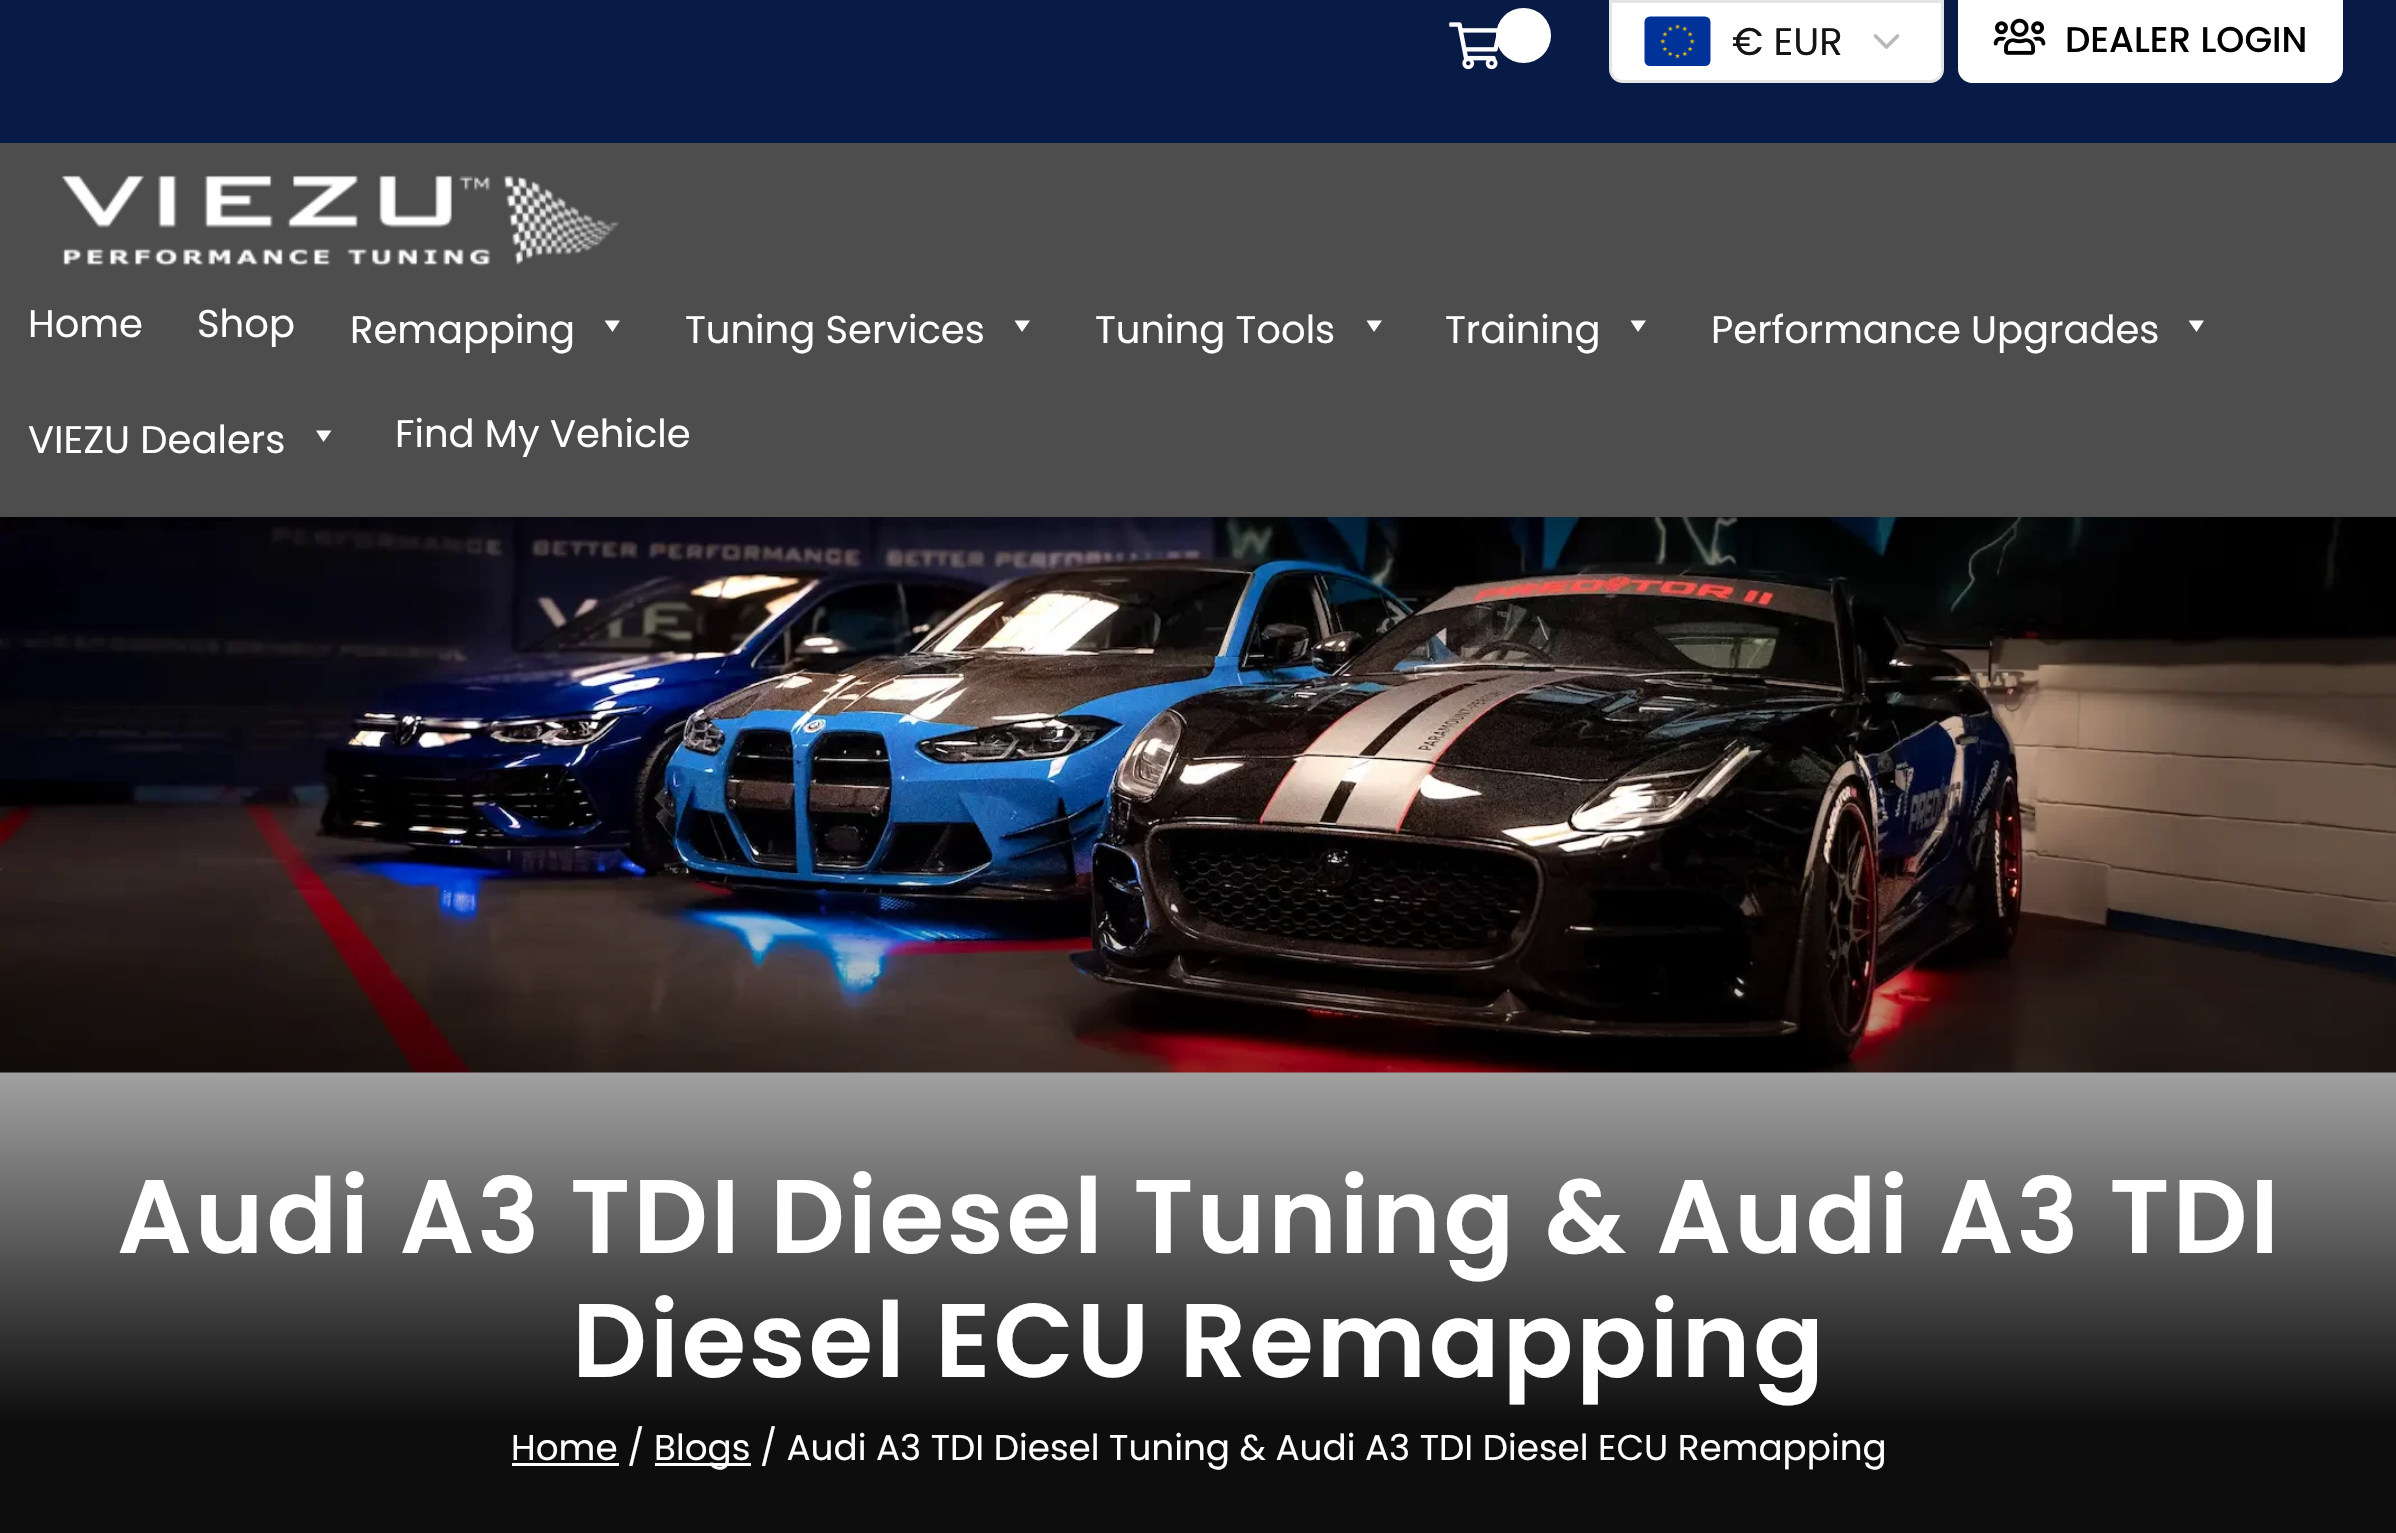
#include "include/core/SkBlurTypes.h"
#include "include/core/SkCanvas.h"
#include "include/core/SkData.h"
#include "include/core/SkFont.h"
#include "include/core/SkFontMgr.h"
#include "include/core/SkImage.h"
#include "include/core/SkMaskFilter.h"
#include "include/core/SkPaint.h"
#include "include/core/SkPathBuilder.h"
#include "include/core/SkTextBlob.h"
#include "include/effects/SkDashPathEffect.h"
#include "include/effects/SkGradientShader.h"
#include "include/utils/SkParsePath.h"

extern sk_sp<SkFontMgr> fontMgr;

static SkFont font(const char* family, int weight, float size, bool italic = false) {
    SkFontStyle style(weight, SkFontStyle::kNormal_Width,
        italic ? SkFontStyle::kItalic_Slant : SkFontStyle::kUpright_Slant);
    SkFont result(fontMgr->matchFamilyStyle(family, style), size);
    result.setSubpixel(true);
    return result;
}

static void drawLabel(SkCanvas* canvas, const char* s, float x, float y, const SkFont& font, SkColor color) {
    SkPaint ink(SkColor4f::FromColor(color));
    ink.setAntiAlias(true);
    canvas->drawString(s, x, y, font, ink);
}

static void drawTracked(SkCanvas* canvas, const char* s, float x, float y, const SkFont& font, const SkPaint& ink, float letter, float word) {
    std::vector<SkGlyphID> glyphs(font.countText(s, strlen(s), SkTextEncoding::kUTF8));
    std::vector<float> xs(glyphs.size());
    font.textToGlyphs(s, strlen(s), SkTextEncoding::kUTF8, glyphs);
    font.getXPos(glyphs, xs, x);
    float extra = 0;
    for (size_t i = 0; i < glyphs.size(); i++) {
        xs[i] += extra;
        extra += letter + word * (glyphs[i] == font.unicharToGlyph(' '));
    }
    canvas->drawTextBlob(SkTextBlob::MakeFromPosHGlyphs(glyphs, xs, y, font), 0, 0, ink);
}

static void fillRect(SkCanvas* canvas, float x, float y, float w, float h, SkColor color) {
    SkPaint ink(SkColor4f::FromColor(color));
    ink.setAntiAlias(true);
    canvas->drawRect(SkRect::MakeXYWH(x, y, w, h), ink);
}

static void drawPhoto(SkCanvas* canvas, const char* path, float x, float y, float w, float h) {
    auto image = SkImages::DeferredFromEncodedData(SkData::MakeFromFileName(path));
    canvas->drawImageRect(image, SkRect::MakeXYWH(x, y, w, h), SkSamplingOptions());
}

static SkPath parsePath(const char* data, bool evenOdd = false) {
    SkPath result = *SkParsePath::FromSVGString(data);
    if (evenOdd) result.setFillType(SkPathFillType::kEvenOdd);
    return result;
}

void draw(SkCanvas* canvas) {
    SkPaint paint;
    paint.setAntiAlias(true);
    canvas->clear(0xFFFFFFFF);
    fillRect(canvas, 0, 143, 2396, 374, 0xFF4D4D4D);
    fillRect(canvas, 0, 0, 2396, 143, 0xFF081B46);
    drawPhoto(canvas, "assets/img1.png", 1449, 22, 50, 48);
    paint.setColor(0xFFFFFFFF);
    canvas->drawCircle(1523.5f, 35.5f, 27.5f, paint);
    canvas->drawPath(parsePath("M1610.5 1.5H1942.5V69C1942.5 76 1937 81.5 1930 81.5H1623C1616 81.5 1610.5 76 1610.5 69Z"), paint);
    paint.setStroke(true);
    paint.setStrokeWidth(3);
    paint.setColor(0xFFE5E5E5);
    canvas->drawPath(parsePath("M1610.5 1.5H1942.5V69C1942.5 76 1937 81.5 1930 81.5H1623C1616 81.5 1610.5 76 1610.5 69Z"), paint);
    drawPhoto(canvas, "assets/img2.png", 1644, 16, 67, 50);
    SkFont font1 = font("Poppins", 400, 38.5f);
    drawLabel(canvas, "€ EUR", 1732, 55, font1, 0xFF151515);
    paint.setStrokeWidth(3.7f);
    paint.setStrokeCap(SkPaint::kRound_Cap);
    paint.setStrokeJoin(SkPaint::kRound_Join);
    paint.setColor(0xFFB9B9B9);
    canvas->drawPath(parsePath("M1875.5 36L1886.5 47L1897.5 36"), paint);
    paint.setStroke(false);
    paint.setColor(0xFFFFFFFF);
    canvas->drawPath(parsePath("M1958 0H2343V69C2343 76.5 2336.5 83 2329 83H1972C1964.5 83 1958 76.5 1958 69Z"), paint);
    drawPhoto(canvas, "assets/img3.png", 1993, 18, 53, 37);
    SkFont font2 = font("Poppins", 500, 35.75f);
    drawLabel(canvas, "DEALER LOGIN", 2065, 52, font2, 0xFF000000);
    drawPhoto(canvas, "assets/img4.png", 62, 175, 557, 91);
    drawLabel(canvas, "Home", 28, 337, font1, 0xFFFFFFFF);
    drawLabel(canvas, "Shop", 197, 337, font1, 0xFFFFFFFF);
    drawLabel(canvas, "Remapping", 350, 343, font1, 0xFFFFFFFF);
    canvas->drawPath(parsePath("M620 320.5L612.5 332L604.5 320.5Z"), paint);
    drawLabel(canvas, "Tuning Services", 685, 343, font1, 0xFFFFFFFF);
    canvas->drawPath(parsePath("M1030 320.5L1022 332L1014.5 320.5Z"), paint);
    drawLabel(canvas, "Tuning Tools", 1095, 343, font1, 0xFFFFFFFF);
    canvas->drawPath(parsePath("M1382 320.5L1374 332L1366.5 320.5Z"), paint);
    drawLabel(canvas, "Training", 1445, 343, font1, 0xFFFFFFFF);
    canvas->drawPath(parsePath("M1646 320.5L1638 332L1630.5 320.5Z"), paint);
    drawLabel(canvas, "Performance Upgrades", 1711, 343, font1, 0xFFFFFFFF);
    canvas->drawPath(parsePath("M2204 320.5L2196.5 332L2188.5 320.5Z"), paint);
    drawLabel(canvas, "VIEZU Dealers", 28, 453, font1, 0xFFFFFFFF);
    canvas->drawPath(parsePath("M331.5 430.5L323.5 442L316 430.5Z"), paint);
    drawLabel(canvas, "Find My Vehicle", 395, 447, font1, 0xFFFFFFFF);
    drawPhoto(canvas, "assets/img5.png", 0, 517, 2396, 556);
    {
        const SkColor colors[] = {0xF2000000, 0x00000000};
        const float stops[] = {0.2f, 1};
        const SkPoint ends[] = {{1199, 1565}, {1199, 850}};
        paint.setShader(SkGradientShader::MakeLinear(ends, colors, stops, 2, SkTileMode::kClamp));
        paint.setAlpha(255);
    }
    canvas->drawRect(SkRect::MakeXYWH(0, 863, 2396, 670), paint);
    SkFont font3 = font("Poppins", 600, 104.5f);
    paint.setShader(nullptr);
    paint.setColor(0xFFFFFFFF);
    drawTracked(canvas, "Audi A3 TDI Diesel Tuning & Audi A3 TDI", 117, 1253, font3, paint, 2.75f, 0);
    drawTracked(canvas, "Diesel ECU Remapping", 572, 1377, font3, paint, 2.75f, 0);
    fillRect(canvas, 512, 1463, 107, 3, 0xFFFFFFFF);
    SkFont font4 = font("Poppins", 400, 35.75f);
    drawLabel(canvas, "Home /", 511, 1460, font4, 0xFFFFFFFF);
    fillRect(canvas, 655, 1463, 96, 3, 0xFFFFFFFF);
    drawLabel(canvas, "Blogs / Audi A3 TDI Diesel Tuning & Audi A3 TDI Diesel ECU Remapping", 654, 1460, font4, 0xFFFFFFFF);
}
